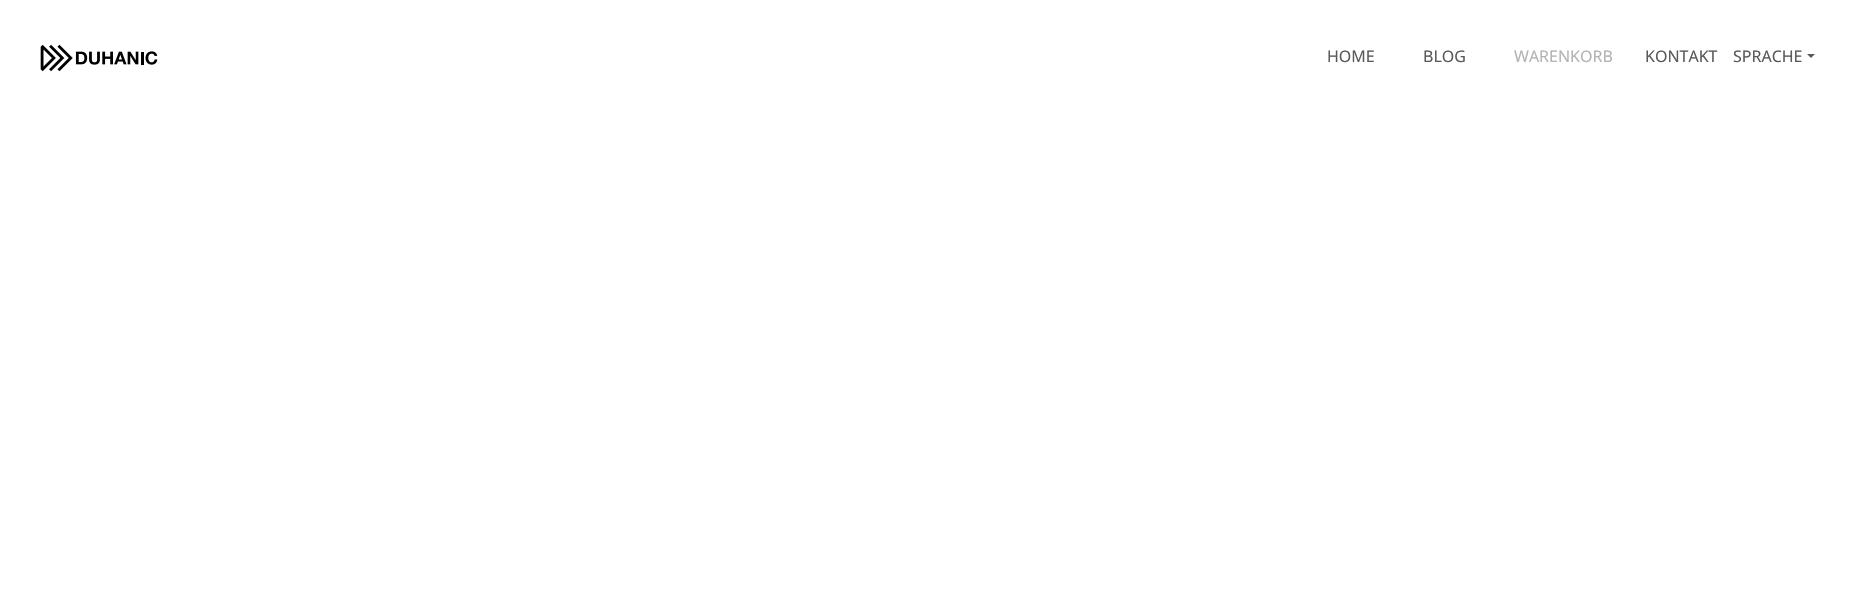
#include "include/core/SkBlurTypes.h"
#include "include/core/SkCanvas.h"
#include "include/core/SkData.h"
#include "include/core/SkFont.h"
#include "include/core/SkFontMgr.h"
#include "include/core/SkImage.h"
#include "include/core/SkMaskFilter.h"
#include "include/core/SkPaint.h"
#include "include/core/SkPathBuilder.h"
#include "include/core/SkTextBlob.h"
#include "include/effects/SkDashPathEffect.h"
#include "include/effects/SkGradientShader.h"
#include "include/utils/SkParsePath.h"

extern sk_sp<SkFontMgr> fontMgr;

static SkFont font(const char* family, int weight, float size, bool italic = false) {
    SkFontStyle style(weight, SkFontStyle::kNormal_Width,
        italic ? SkFontStyle::kItalic_Slant : SkFontStyle::kUpright_Slant);
    SkFont result(fontMgr->matchFamilyStyle(family, style), size);
    result.setSubpixel(true);
    return result;
}

static void drawLabel(SkCanvas* canvas, const char* s, float x, float y, const SkFont& font, SkColor color) {
    SkPaint ink(SkColor4f::FromColor(color));
    ink.setAntiAlias(true);
    canvas->drawString(s, x, y, font, ink);
}

static void drawPhoto(SkCanvas* canvas, const char* path, float x, float y, float w, float h) {
    auto image = SkImages::DeferredFromEncodedData(SkData::MakeFromFileName(path));
    canvas->drawImageRect(image, SkRect::MakeXYWH(x, y, w, h), SkSamplingOptions());
}

static SkPath parsePath(const char* data, bool evenOdd = false) {
    SkPath result = *SkParsePath::FromSVGString(data);
    if (evenOdd) result.setFillType(SkPathFillType::kEvenOdd);
    return result;
}

void draw(SkCanvas* canvas) {
    SkPaint paint;
    paint.setAntiAlias(true);
    canvas->clear(0xFFFFFFFF);
    drawPhoto(canvas, "assets/img1.png", 40, 44, 118, 28);
    SkFont font1 = font("Noto Sans", 400, 16);
    drawLabel(canvas, "HOME", 1327, 62, font1, 0xFF595959);
    drawLabel(canvas, "BLOG", 1423, 62, font1, 0xFF595959);
    drawLabel(canvas, "WARENKORB", 1514, 62, font1, 0xFFB3B3B3);
    drawLabel(canvas, "KONTAKT", 1645, 62, font1, 0xFF595959);
    drawLabel(canvas, "SPRACHE", 1733, 62, font1, 0xFF595959);
    paint.setColor(0xFF595959);
    canvas->drawPath(parsePath("M1807 54H1815L1811 58Z"), paint);
}
